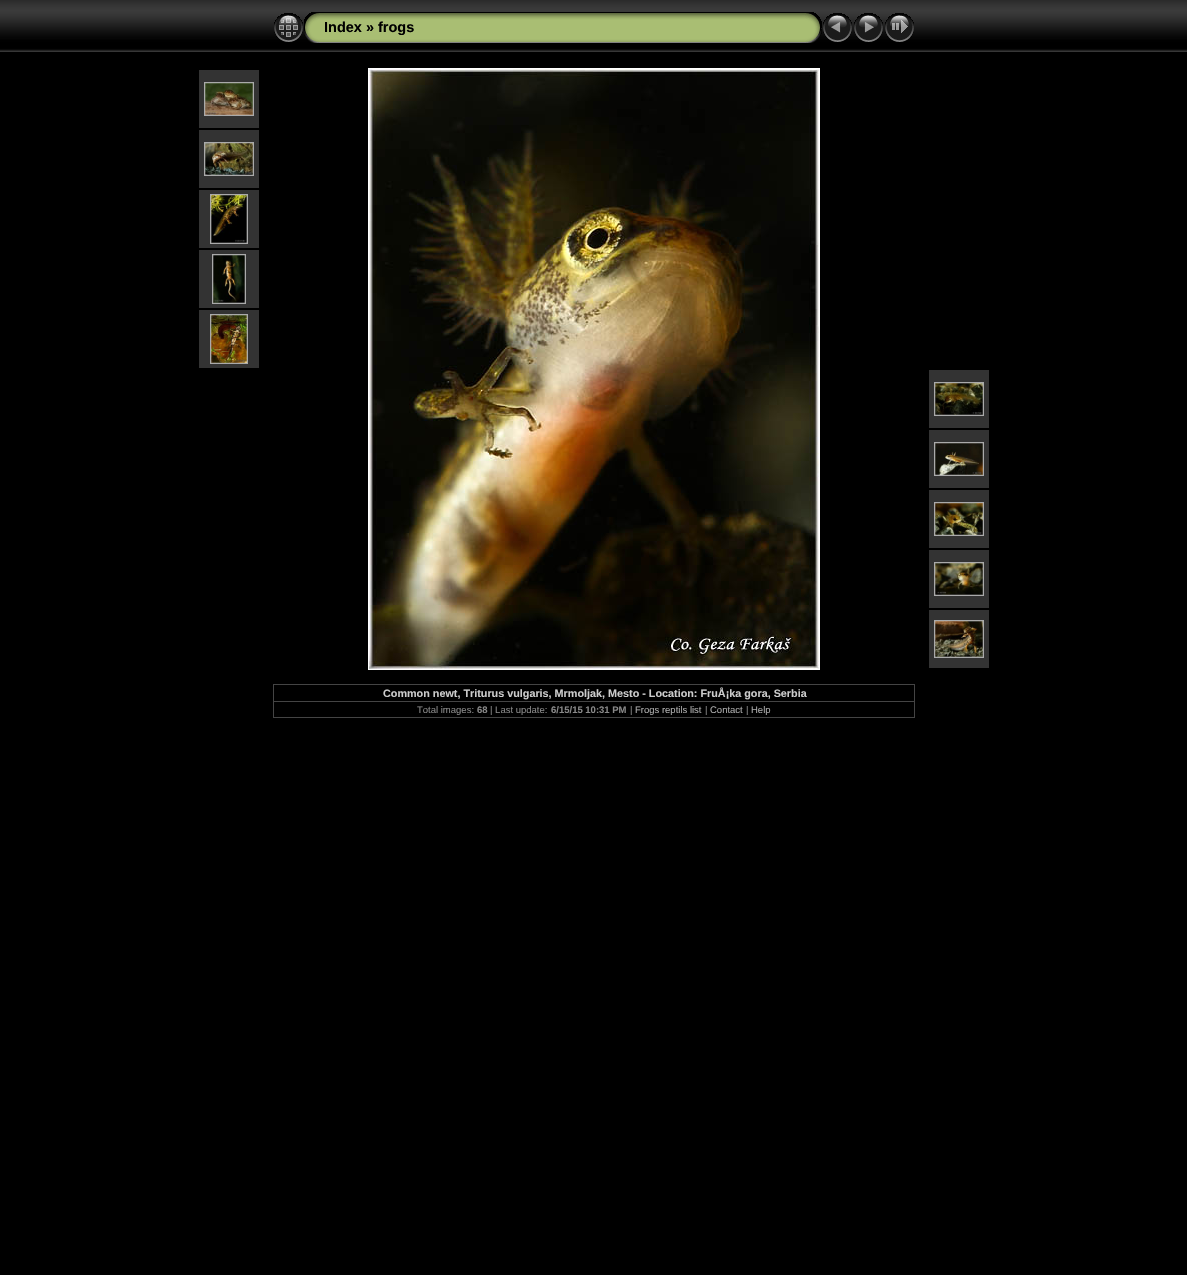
#include "include/core/SkBlurTypes.h"
#include "include/core/SkCanvas.h"
#include "include/core/SkData.h"
#include "include/core/SkFont.h"
#include "include/core/SkFontMgr.h"
#include "include/core/SkImage.h"
#include "include/core/SkMaskFilter.h"
#include "include/core/SkPaint.h"
#include "include/core/SkPathBuilder.h"
#include "include/core/SkTextBlob.h"
#include "include/effects/SkDashPathEffect.h"
#include "include/effects/SkGradientShader.h"
#include "include/utils/SkParsePath.h"

extern sk_sp<SkFontMgr> fontMgr;

static SkFont font(const char* family, int weight, float size, bool italic = false) {
    SkFontStyle style(weight, SkFontStyle::kNormal_Width,
        italic ? SkFontStyle::kItalic_Slant : SkFontStyle::kUpright_Slant);
    SkFont result(fontMgr->matchFamilyStyle(family, style), size);
    result.setSubpixel(true);
    return result;
}

static void drawLabel(SkCanvas* canvas, const char* s, float x, float y, const SkFont& font, SkColor color) {
    SkPaint ink(SkColor4f::FromColor(color));
    ink.setAntiAlias(true);
    canvas->drawString(s, x, y, font, ink);
}

static void fillRect(SkCanvas* canvas, float x, float y, float w, float h, SkColor color) {
    SkPaint ink(SkColor4f::FromColor(color));
    ink.setAntiAlias(true);
    canvas->drawRect(SkRect::MakeXYWH(x, y, w, h), ink);
}

static void drawPhoto(SkCanvas* canvas, const char* path, float x, float y, float w, float h) {
    auto image = SkImages::DeferredFromEncodedData(SkData::MakeFromFileName(path));
    canvas->drawImageRect(image, SkRect::MakeXYWH(x, y, w, h), SkSamplingOptions());
}

void draw(SkCanvas* canvas) {
    SkPaint paint;
    paint.setAntiAlias(true);
    canvas->clear(0xFF000000);
    drawPhoto(canvas, "assets/img1.png", 0, 0, 1187, 52);
    drawPhoto(canvas, "assets/img2.png", 274, 13, 29, 29);
    drawPhoto(canvas, "assets/img3.png", 304, 12, 20, 31);
    drawPhoto(canvas, "assets/img4.png", 324, 12, 478, 31);
    SkFont font1 = font("Liberation Sans", 700, 14.5f);
    drawLabel(canvas, "Index » frogs", 324, 32, font1, 0xFF000000);
    drawPhoto(canvas, "assets/img5.png", 802, 12, 20, 31);
    drawPhoto(canvas, "assets/img6.png", 823, 13, 29, 29);
    drawPhoto(canvas, "assets/img7.png", 854, 13, 29, 29);
    drawPhoto(canvas, "assets/img8.png", 885, 13, 29, 29);
    fillRect(canvas, 199, 70, 60, 58, 0xFF333333);
    paint.setStroke(true);
    paint.setStrokeWidth(1);
    paint.setColor(0xFFAAAAAA);
    canvas->drawRect(SkRect::MakeXYWH(204.5f, 82.5f, 49, 33), paint);
    drawPhoto(canvas, "assets/img9.png", 205, 83, 48, 32);
    fillRect(canvas, 199, 130, 60, 58, 0xFF333333);
    canvas->drawRect(SkRect::MakeXYWH(204.5f, 142.5f, 49, 33), paint);
    drawPhoto(canvas, "assets/img10.png", 205, 143, 48, 32);
    fillRect(canvas, 199, 190, 60, 58, 0xFF333333);
    canvas->drawRect(SkRect::MakeXYWH(210.5f, 194.5f, 37, 49), paint);
    drawPhoto(canvas, "assets/img11.png", 211, 195, 36, 48);
    fillRect(canvas, 199, 250, 60, 58, 0xFF333333);
    canvas->drawRect(SkRect::MakeXYWH(212.5f, 254.5f, 33, 49), paint);
    drawPhoto(canvas, "assets/img12.png", 213, 255, 32, 48);
    fillRect(canvas, 199, 310, 60, 58, 0xFF333333);
    canvas->drawRect(SkRect::MakeXYWH(210.5f, 314.5f, 37, 49), paint);
    drawPhoto(canvas, "assets/img13.png", 211, 315, 36, 48);
    paint.setColor(0xFFFFFFFF);
    canvas->drawRect(SkRect::MakeXYWH(368.5f, 68.5f, 451, 601), paint);
    drawPhoto(canvas, "assets/img14.png", 369, 69, 450, 600);
    fillRect(canvas, 929, 370, 60, 58, 0xFF333333);
    paint.setColor(0xFFAAAAAA);
    canvas->drawRect(SkRect::MakeXYWH(934.5f, 382.5f, 49, 33), paint);
    drawPhoto(canvas, "assets/img15.png", 935, 383, 48, 32);
    fillRect(canvas, 929, 430, 60, 58, 0xFF333333);
    canvas->drawRect(SkRect::MakeXYWH(934.5f, 442.5f, 49, 33), paint);
    drawPhoto(canvas, "assets/img16.png", 935, 443, 48, 32);
    fillRect(canvas, 929, 490, 60, 58, 0xFF333333);
    canvas->drawRect(SkRect::MakeXYWH(934.5f, 502.5f, 49, 33), paint);
    drawPhoto(canvas, "assets/img17.png", 935, 503, 48, 32);
    fillRect(canvas, 929, 550, 60, 58, 0xFF333333);
    canvas->drawRect(SkRect::MakeXYWH(934.5f, 562.5f, 49, 33), paint);
    drawPhoto(canvas, "assets/img18.png", 935, 563, 48, 32);
    fillRect(canvas, 929, 610, 60, 58, 0xFF333333);
    canvas->drawRect(SkRect::MakeXYWH(934.5f, 620.5f, 49, 37), paint);
    drawPhoto(canvas, "assets/img19.png", 935, 621, 48, 36);
    fillRect(canvas, 273, 684, 642, 1, 0xFF444444);
    fillRect(canvas, 914, 684, 1, 34, 0xFF444444);
    fillRect(canvas, 273, 717, 642, 1, 0xFF444444);
    fillRect(canvas, 273, 684, 1, 34, 0xFF444444);
    SkFont font2 = font("Liberation Sans", 700, 10.8f);
    drawLabel(canvas, "Common newt, Triturus vulgaris, Mrmoljak, Mesto - Location: FruÅ¡ka gora, Serbia", 383, 697, font2, 0xFFCCCCCC);
    fillRect(canvas, 273, 701, 642, 1, 0xFF444444);
    SkFont font3 = font("Liberation Sans", 400, 9.5f);
    drawLabel(canvas, "Total images:", 417, 713, font3, 0xFF888888);
    SkFont font4 = font("Liberation Sans", 700, 9.5f);
    drawLabel(canvas, "68", 477, 713, font4, 0xFF888888);
    drawLabel(canvas, "| Last update:", 490, 713, font3, 0xFF888888);
    drawLabel(canvas, "6/15/15 10:31 PM", 551, 713, font4, 0xFF888888);
    drawLabel(canvas, "|", 630, 713, font3, 0xFF888888);
    drawLabel(canvas, "Frogs reptils list", 635, 713, font3, 0xFFAAAAAA);
    drawLabel(canvas, "|", 705, 713, font3, 0xFF888888);
    drawLabel(canvas, "Contact", 710, 713, font3, 0xFFAAAAAA);
    drawLabel(canvas, "|", 746, 713, font3, 0xFF888888);
    drawLabel(canvas, "Help", 751, 713, font3, 0xFFAAAAAA);
}
